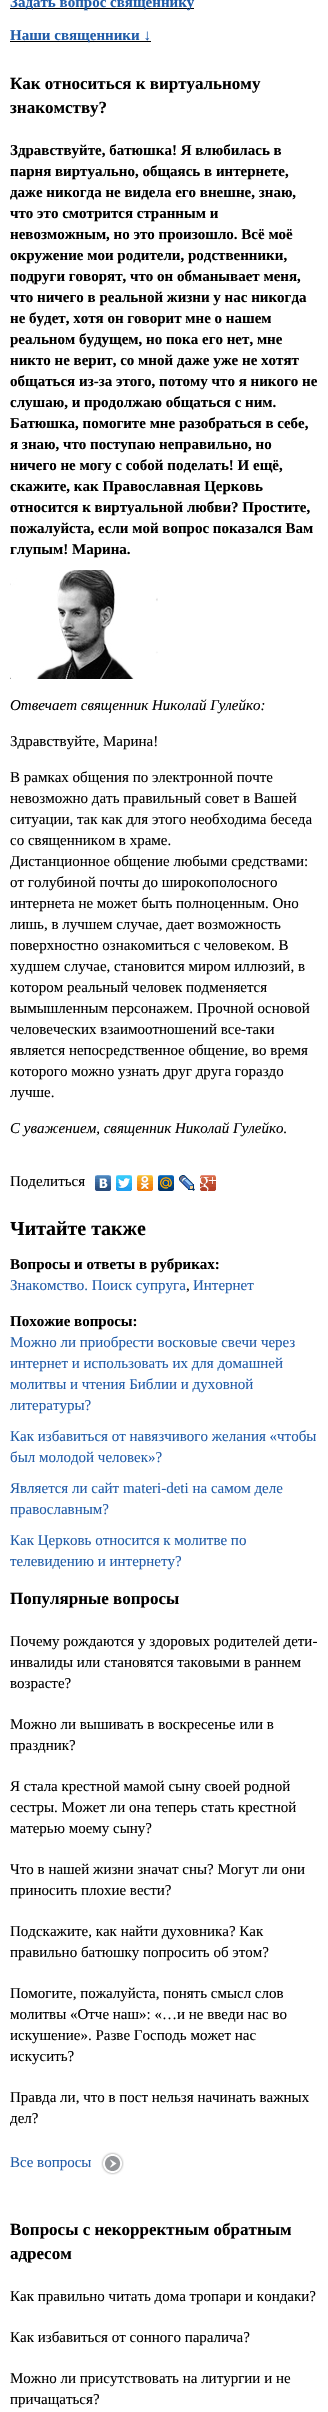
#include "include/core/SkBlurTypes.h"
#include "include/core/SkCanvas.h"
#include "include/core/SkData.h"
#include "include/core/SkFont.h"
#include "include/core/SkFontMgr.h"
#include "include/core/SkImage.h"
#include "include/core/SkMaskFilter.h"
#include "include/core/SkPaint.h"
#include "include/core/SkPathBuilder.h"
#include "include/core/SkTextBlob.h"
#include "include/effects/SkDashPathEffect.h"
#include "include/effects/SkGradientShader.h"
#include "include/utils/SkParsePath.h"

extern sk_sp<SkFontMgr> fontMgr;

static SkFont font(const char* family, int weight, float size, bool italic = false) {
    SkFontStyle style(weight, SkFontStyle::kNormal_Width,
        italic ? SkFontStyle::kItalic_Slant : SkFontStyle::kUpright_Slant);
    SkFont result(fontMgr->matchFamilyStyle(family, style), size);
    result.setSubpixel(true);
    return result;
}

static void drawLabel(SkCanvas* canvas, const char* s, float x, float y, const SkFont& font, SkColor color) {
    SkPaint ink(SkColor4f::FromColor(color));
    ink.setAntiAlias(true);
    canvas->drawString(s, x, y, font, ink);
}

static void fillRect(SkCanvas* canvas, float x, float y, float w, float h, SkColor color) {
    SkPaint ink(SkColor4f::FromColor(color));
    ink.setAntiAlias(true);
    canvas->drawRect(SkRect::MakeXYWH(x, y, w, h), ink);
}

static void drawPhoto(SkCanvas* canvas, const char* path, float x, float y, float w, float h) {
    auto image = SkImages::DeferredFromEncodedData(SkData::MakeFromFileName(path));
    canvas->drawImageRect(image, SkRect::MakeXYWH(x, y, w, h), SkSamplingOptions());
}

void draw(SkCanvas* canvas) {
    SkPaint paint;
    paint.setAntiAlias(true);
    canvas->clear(0xFFFFFFFF);
    fillRect(canvas, 10, 8, 184, 1, 0xFF000000);
    SkFont font1 = font("Liberation Serif", 700, 15);
    drawLabel(canvas, "Задать вопрос священнику", 10, 7, font1, 0xFF225DA9);
    fillRect(canvas, 10, 41, 141, 1, 0xFF000000);
    drawLabel(canvas, "Наши священники ↓", 10, 40, font1, 0xFF225DA9);
    SkFont font2 = font("Liberation Serif", 700, 17);
    drawLabel(canvas, "Как относиться к виртуальному", 10, 89, font2, 0xFF000000);
    drawLabel(canvas, "знакомству?", 10, 113, font2, 0xFF000000);
    drawLabel(canvas, "Здравствуйте, батюшка! Я влюбилась в", 10, 155, font1, 0xFF000000);
    drawLabel(canvas, "парня виртуально, общаясь в интернете,", 10, 176, font1, 0xFF000000);
    drawLabel(canvas, "даже никогда не видела его внешне, знаю,", 10, 197, font1, 0xFF000000);
    drawLabel(canvas, "что это смотрится странным и", 10, 218, font1, 0xFF000000);
    drawLabel(canvas, "невозможным, но это произошло. Всё моё", 10, 239, font1, 0xFF000000);
    drawLabel(canvas, "окружение мои родители, родственники,", 10, 260, font1, 0xFF000000);
    drawLabel(canvas, "подруги говорят, что он обманывает меня,", 10, 281, font1, 0xFF000000);
    drawLabel(canvas, "что ничего в реальной жизни у нас никогда", 10, 302, font1, 0xFF000000);
    drawLabel(canvas, "не будет, хотя он говорит мне о нашем", 10, 323, font1, 0xFF000000);
    drawLabel(canvas, "реальном будущем, но пока его нет, мне", 10, 344, font1, 0xFF000000);
    drawLabel(canvas, "никто не верит, со мной даже уже не хотят", 10, 365, font1, 0xFF000000);
    drawLabel(canvas, "общаться из-за этого, потому что я никого не", 10, 386, font1, 0xFF000000);
    drawLabel(canvas, "слушаю, и продолжаю общаться с ним.", 10, 407, font1, 0xFF000000);
    drawLabel(canvas, "Батюшка, помогите мне разобраться в себе,", 10, 428, font1, 0xFF000000);
    drawLabel(canvas, "я знаю, что поступаю неправильно, но", 10, 449, font1, 0xFF000000);
    drawLabel(canvas, "ничего не могу с собой поделать! И ещё,", 10, 470, font1, 0xFF000000);
    drawLabel(canvas, "скажите, как Православная Церковь", 10, 491, font1, 0xFF000000);
    drawLabel(canvas, "относится к виртуальной любви? Простите,", 10, 512, font1, 0xFF000000);
    drawLabel(canvas, "пожалуйста, если мой вопрос показался Вам", 10, 533, font1, 0xFF000000);
    drawLabel(canvas, "глупым! Марина.", 10, 554, font1, 0xFF000000);
    drawPhoto(canvas, "assets/img1.png", 10, 570, 148, 109);
    SkFont font3 = font("Liberation Serif", 400, 15, true);
    drawLabel(canvas, "Отвечает священник Николай Гулейко:", 10, 710, font3, 0xFF000000);
    SkFont font4 = font("Liberation Serif", 400, 15);
    drawLabel(canvas, "Здравствуйте, Марина!", 10, 746, font4, 0xFF000000);
    drawLabel(canvas, "В рамках общения по электронной почте", 10, 782, font4, 0xFF000000);
    drawLabel(canvas, "невозможно дать правильный совет в Вашей", 10, 803, font4, 0xFF000000);
    drawLabel(canvas, "ситуации, так как для этого необходима беседа", 10, 824, font4, 0xFF000000);
    drawLabel(canvas, "со священником в храме.", 10, 845, font4, 0xFF000000);
    drawLabel(canvas, "Дистанционное общение любыми средствами:", 10, 866, font4, 0xFF000000);
    drawLabel(canvas, "от голубиной почты до широкополосного", 10, 887, font4, 0xFF000000);
    drawLabel(canvas, "интернета не может быть полноценным. Оно", 10, 908, font4, 0xFF000000);
    drawLabel(canvas, "лишь, в лучшем случае, дает возможность", 10, 929, font4, 0xFF000000);
    drawLabel(canvas, "поверхностно ознакомиться с человеком. В", 10, 950, font4, 0xFF000000);
    drawLabel(canvas, "худшем случае, становится миром иллюзий, в", 10, 971, font4, 0xFF000000);
    drawLabel(canvas, "котором реальный человек подменяется", 10, 992, font4, 0xFF000000);
    drawLabel(canvas, "вымышленным персонажем. Прочной основой", 10, 1013, font4, 0xFF000000);
    drawLabel(canvas, "человеческих взаимоотношений все-таки", 10, 1034, font4, 0xFF000000);
    drawLabel(canvas, "является непосредственное общение, во время", 10, 1055, font4, 0xFF000000);
    drawLabel(canvas, "которого можно узнать друг друга гораздо", 10, 1076, font4, 0xFF000000);
    drawLabel(canvas, "лучше.", 10, 1097, font4, 0xFF000000);
    drawLabel(canvas, "С уважением, священник Николай Гулейко.", 10, 1133, font3, 0xFF000000);
    drawLabel(canvas, "Поделиться", 10, 1186, font4, 0xFF000000);
    drawPhoto(canvas, "assets/img2.png", 95, 1175, 16, 16);
    drawPhoto(canvas, "assets/img3.png", 116, 1175, 16, 16);
    drawPhoto(canvas, "assets/img4.png", 137, 1175, 16, 16);
    drawPhoto(canvas, "assets/img5.png", 158, 1175, 16, 16);
    drawPhoto(canvas, "assets/img6.png", 179, 1175, 16, 16);
    drawPhoto(canvas, "assets/img7.png", 200, 1175, 16, 16);
    SkFont font5 = font("Liberation Serif", 700, 20);
    drawLabel(canvas, "Читайте также", 10, 1235, font5, 0xFF000000);
    drawLabel(canvas, "Вопросы и ответы в рубриках:", 10, 1269, font1, 0xFF000000);
    drawLabel(canvas, "Знакомство. Поиск супруга", 10, 1290, font4, 0xFF225DA9);
    drawLabel(canvas, ",", 186, 1290, font4, 0xFF000000);
    drawLabel(canvas, "Интернет", 193, 1290, font4, 0xFF225DA9);
    drawLabel(canvas, "Похожие вопросы:", 10, 1326, font1, 0xFF000000);
    drawLabel(canvas, "Можно ли приобрести восковые свечи через", 10, 1347, font4, 0xFF225DA9);
    drawLabel(canvas, "интернет и использовать их для домашней", 10, 1368, font4, 0xFF225DA9);
    drawLabel(canvas, "молитвы и чтения Библии и духовной", 10, 1389, font4, 0xFF225DA9);
    drawLabel(canvas, "литературы?", 10, 1410, font4, 0xFF225DA9);
    drawLabel(canvas, "Как избавиться от навязчивого желания «чтобы", 10, 1441, font4, 0xFF225DA9);
    drawLabel(canvas, "был молодой человек»?", 10, 1462, font4, 0xFF225DA9);
    drawLabel(canvas, "Является ли сайт materi-deti на самом деле", 10, 1493, font4, 0xFF225DA9);
    drawLabel(canvas, "православным?", 10, 1514, font4, 0xFF225DA9);
    drawLabel(canvas, "Как Церковь относится к молитве по", 10, 1545, font4, 0xFF225DA9);
    drawLabel(canvas, "телевидению и интернету?", 10, 1566, font4, 0xFF225DA9);
    drawLabel(canvas, "Популярные вопросы", 10, 1604, font2, 0xFF000000);
    drawLabel(canvas, "Почему рождаются у здоровых родителей дети-", 10, 1646, font4, 0xFF000000);
    drawLabel(canvas, "инвалиды или становятся таковыми в раннем", 10, 1667, font4, 0xFF000000);
    drawLabel(canvas, "возрасте?", 10, 1688, font4, 0xFF000000);
    drawLabel(canvas, "Можно ли вышивать в воскресенье или в", 10, 1729, font4, 0xFF000000);
    drawLabel(canvas, "праздник?", 10, 1750, font4, 0xFF000000);
    drawLabel(canvas, "Я стала крестной мамой сыну своей родной", 10, 1791, font4, 0xFF000000);
    drawLabel(canvas, "сестры. Может ли она теперь стать крестной", 10, 1812, font4, 0xFF000000);
    drawLabel(canvas, "матерью моему сыну?", 10, 1833, font4, 0xFF000000);
    drawLabel(canvas, "Что в нашей жизни значат сны? Могут ли они", 10, 1874, font4, 0xFF000000);
    drawLabel(canvas, "приносить плохие вести?", 10, 1895, font4, 0xFF000000);
    drawLabel(canvas, "Подскажите, как найти духовника? Как", 10, 1936, font4, 0xFF000000);
    drawLabel(canvas, "правильно батюшку попросить об этом?", 10, 1957, font4, 0xFF000000);
    drawLabel(canvas, "Помогите, пожалуйста, понять смысл слов", 10, 1998, font4, 0xFF000000);
    drawLabel(canvas, "молитвы «Отче наш»: «…и не введи нас во", 10, 2019, font4, 0xFF000000);
    drawLabel(canvas, "искушение». Разве Господь может нас", 10, 2040, font4, 0xFF000000);
    drawLabel(canvas, "искусить?", 10, 2061, font4, 0xFF000000);
    drawLabel(canvas, "Правда ли, что в пост нельзя начинать важных", 10, 2102, font4, 0xFF000000);
    drawLabel(canvas, "дел?", 10, 2123, font4, 0xFF000000);
    drawLabel(canvas, "Все вопросы", 10, 2167, font4, 0xFF225DA9);
    drawPhoto(canvas, "assets/img8.png", 101, 2152, 23, 23);
    drawLabel(canvas, "Вопросы с некорректным обратным", 10, 2235, font2, 0xFF000000);
    drawLabel(canvas, "адресом", 10, 2259, font2, 0xFF000000);
    drawLabel(canvas, "Как правильно читать дома тропари и кондаки?", 10, 2301, font4, 0xFF000000);
    drawLabel(canvas, "Как избавиться от сонного паралича?", 10, 2342, font4, 0xFF000000);
    drawLabel(canvas, "Можно ли присутствовать на литургии и не", 10, 2383, font4, 0xFF000000);
    drawLabel(canvas, "причащаться?", 10, 2404, font4, 0xFF000000);
}
